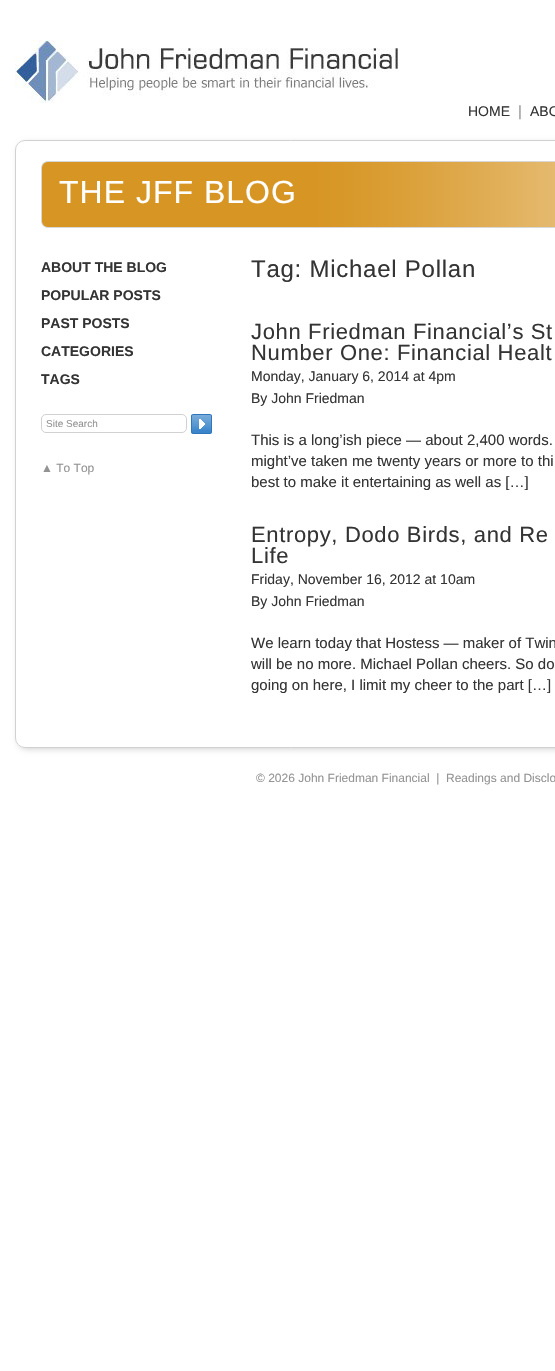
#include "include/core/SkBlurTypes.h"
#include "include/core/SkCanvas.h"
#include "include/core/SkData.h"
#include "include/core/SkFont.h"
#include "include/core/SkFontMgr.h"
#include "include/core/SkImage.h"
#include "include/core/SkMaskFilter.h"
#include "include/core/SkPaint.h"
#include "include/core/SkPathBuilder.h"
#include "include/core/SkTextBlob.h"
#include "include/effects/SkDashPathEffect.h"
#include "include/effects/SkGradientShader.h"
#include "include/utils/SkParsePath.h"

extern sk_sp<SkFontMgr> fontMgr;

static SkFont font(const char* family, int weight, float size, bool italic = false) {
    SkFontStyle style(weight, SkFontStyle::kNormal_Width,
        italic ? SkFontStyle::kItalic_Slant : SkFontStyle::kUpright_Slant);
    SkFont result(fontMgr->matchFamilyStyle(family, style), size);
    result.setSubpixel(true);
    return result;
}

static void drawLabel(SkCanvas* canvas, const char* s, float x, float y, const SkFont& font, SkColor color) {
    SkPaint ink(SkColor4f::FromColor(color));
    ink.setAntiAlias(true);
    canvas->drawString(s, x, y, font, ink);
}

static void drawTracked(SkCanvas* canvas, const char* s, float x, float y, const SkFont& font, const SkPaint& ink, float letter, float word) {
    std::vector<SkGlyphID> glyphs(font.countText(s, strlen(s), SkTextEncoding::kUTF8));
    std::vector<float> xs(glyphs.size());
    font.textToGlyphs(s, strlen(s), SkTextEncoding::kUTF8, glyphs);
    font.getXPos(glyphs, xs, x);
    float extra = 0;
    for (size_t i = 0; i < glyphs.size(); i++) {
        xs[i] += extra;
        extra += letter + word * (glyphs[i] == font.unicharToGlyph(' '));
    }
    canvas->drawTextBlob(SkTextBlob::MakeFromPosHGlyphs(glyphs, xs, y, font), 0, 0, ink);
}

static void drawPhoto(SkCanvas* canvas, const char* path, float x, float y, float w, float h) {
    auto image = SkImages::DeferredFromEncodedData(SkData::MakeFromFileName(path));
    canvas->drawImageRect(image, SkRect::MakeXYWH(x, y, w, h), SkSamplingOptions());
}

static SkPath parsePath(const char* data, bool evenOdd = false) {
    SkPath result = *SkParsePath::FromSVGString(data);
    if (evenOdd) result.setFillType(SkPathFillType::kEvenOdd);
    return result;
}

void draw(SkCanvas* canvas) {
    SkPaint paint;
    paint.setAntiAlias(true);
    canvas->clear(0xFFFFFFFF);
    drawPhoto(canvas, "assets/img1.png", 15, 40, 384, 63);
    SkFont font1 = font("Liberation Sans", 400, 14);
    drawLabel(canvas, "HOME", 468, 116, font1, 0xFF343434);
    SkFont font2 = font("Liberation Sans", 400, 15);
    drawLabel(canvas, "|", 518, 116, font2, 0xFF939393);
    drawLabel(canvas, "ABO", 530, 116, font1, 0xFF343434);
    canvas->save();
    canvas->clipPath(parsePath("M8 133H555V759H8ZM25 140H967C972.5 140 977 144.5 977 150V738C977 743.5 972.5 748 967 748H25C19.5 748 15 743.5 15 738V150C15 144.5 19.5 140 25 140Z", true), true);
    paint.setColor(0xFFD1D1D1);
    paint.setMaskFilter(SkMaskFilter::MakeBlur(kNormal_SkBlurStyle, 3));
    canvas->drawRoundRect(SkRect::MakeXYWH(18, 143, 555, 606), 9, 9, paint);
    paint.setMaskFilter(nullptr);
    canvas->restore();
    paint.setStroke(true);
    paint.setStrokeWidth(1);
    canvas->drawRoundRect(SkRect::MakeXYWH(15.5f, 140.5f, 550, 607), 9.5f, 9.5f, paint);
    drawPhoto(canvas, "assets/img2.png", 41, 161, 514, 67);
    SkFont font3 = font("Liberation Sans", 400, 32);
    paint.setStroke(false);
    paint.setColor(0xFFFFFFFF);
    drawTracked(canvas, "THE JFF BLOG", 59, 203, font3, paint, 1, 0);
    SkFont font4 = font("Liberation Sans", 700, 14);
    drawLabel(canvas, "ABOUT THE BLOG", 41, 272, font4, 0xFF343434);
    drawLabel(canvas, "POPULAR POSTS", 41, 300, font4, 0xFF343434);
    drawLabel(canvas, "PAST POSTS", 41, 328, font4, 0xFF343434);
    drawLabel(canvas, "CATEGORIES", 41, 356, font4, 0xFF343434);
    drawLabel(canvas, "TAGS", 41, 384, font4, 0xFF343434);
    paint.setStroke(true);
    paint.setColor(0xFFD1D1D1);
    canvas->drawRoundRect(SkRect::MakeXYWH(41.5f, 414.5f, 145, 18), 4.5f, 4.5f, paint);
    SkFont font5 = font("Liberation Sans", 400, 10);
    drawLabel(canvas, "Site Search", 46, 427, font5, 0xFF939393);
    drawPhoto(canvas, "assets/img3.png", 191, 414, 21, 20);
    SkFont font6 = font("Liberation Sans", 400, 12);
    drawLabel(canvas, "▲ To Top", 41, 472, font6, 0xFF939393);
    SkFont font7 = font("Liberation Sans", 400, 24);
    paint.setStroke(false);
    paint.setColor(0xFF343434);
    drawTracked(canvas, "Tag: Michael Pollan", 251, 277, font7, paint, 0.75f, 0);
    SkFont font8 = font("Liberation Sans", 400, 22);
    drawTracked(canvas, "John Friedman Financial’s St", 251, 339, font8, paint, 0.65f, 0);
    drawTracked(canvas, "Number One: Financial Healt", 251, 360, font8, paint, 0.65f, 0);
    drawLabel(canvas, "Monday, January 6, 2014 at 4pm", 251, 381, font1, 0xFF343434);
    drawLabel(canvas, "By John Friedman", 251, 403, font1, 0xFF343434);
    drawLabel(canvas, "This is a long’ish piece — about 2,400 words.", 251, 445, font2, 0xFF343434);
    drawLabel(canvas, "might’ve taken me twenty years or more to thi", 251, 466, font2, 0xFF343434);
    drawLabel(canvas, "best to make it entertaining as well as […]", 251, 487, font2, 0xFF343434);
    drawTracked(canvas, "Entropy, Dodo Birds, and Re", 251, 542, font8, paint, 0.65f, 0);
    drawTracked(canvas, "Life", 251, 563, font8, paint, 0.65f, 0);
    drawLabel(canvas, "Friday, November 16, 2012 at 10am", 251, 584, font1, 0xFF343434);
    drawLabel(canvas, "By John Friedman", 251, 606, font1, 0xFF343434);
    drawLabel(canvas, "We learn today that Hostess — maker of Twin", 251, 648, font2, 0xFF343434);
    drawLabel(canvas, "will be no more. Michael Pollan cheers. So do", 251, 669, font2, 0xFF343434);
    drawLabel(canvas, "going on here, I limit my cheer to the part […]", 251, 690, font2, 0xFF343434);
    drawLabel(canvas, "© 2026 John Friedman Financial  |", 256, 782, font6, 0xFF939393);
    drawLabel(canvas, "Readings and Disclo", 446, 782, font6, 0xFF939393);
}
